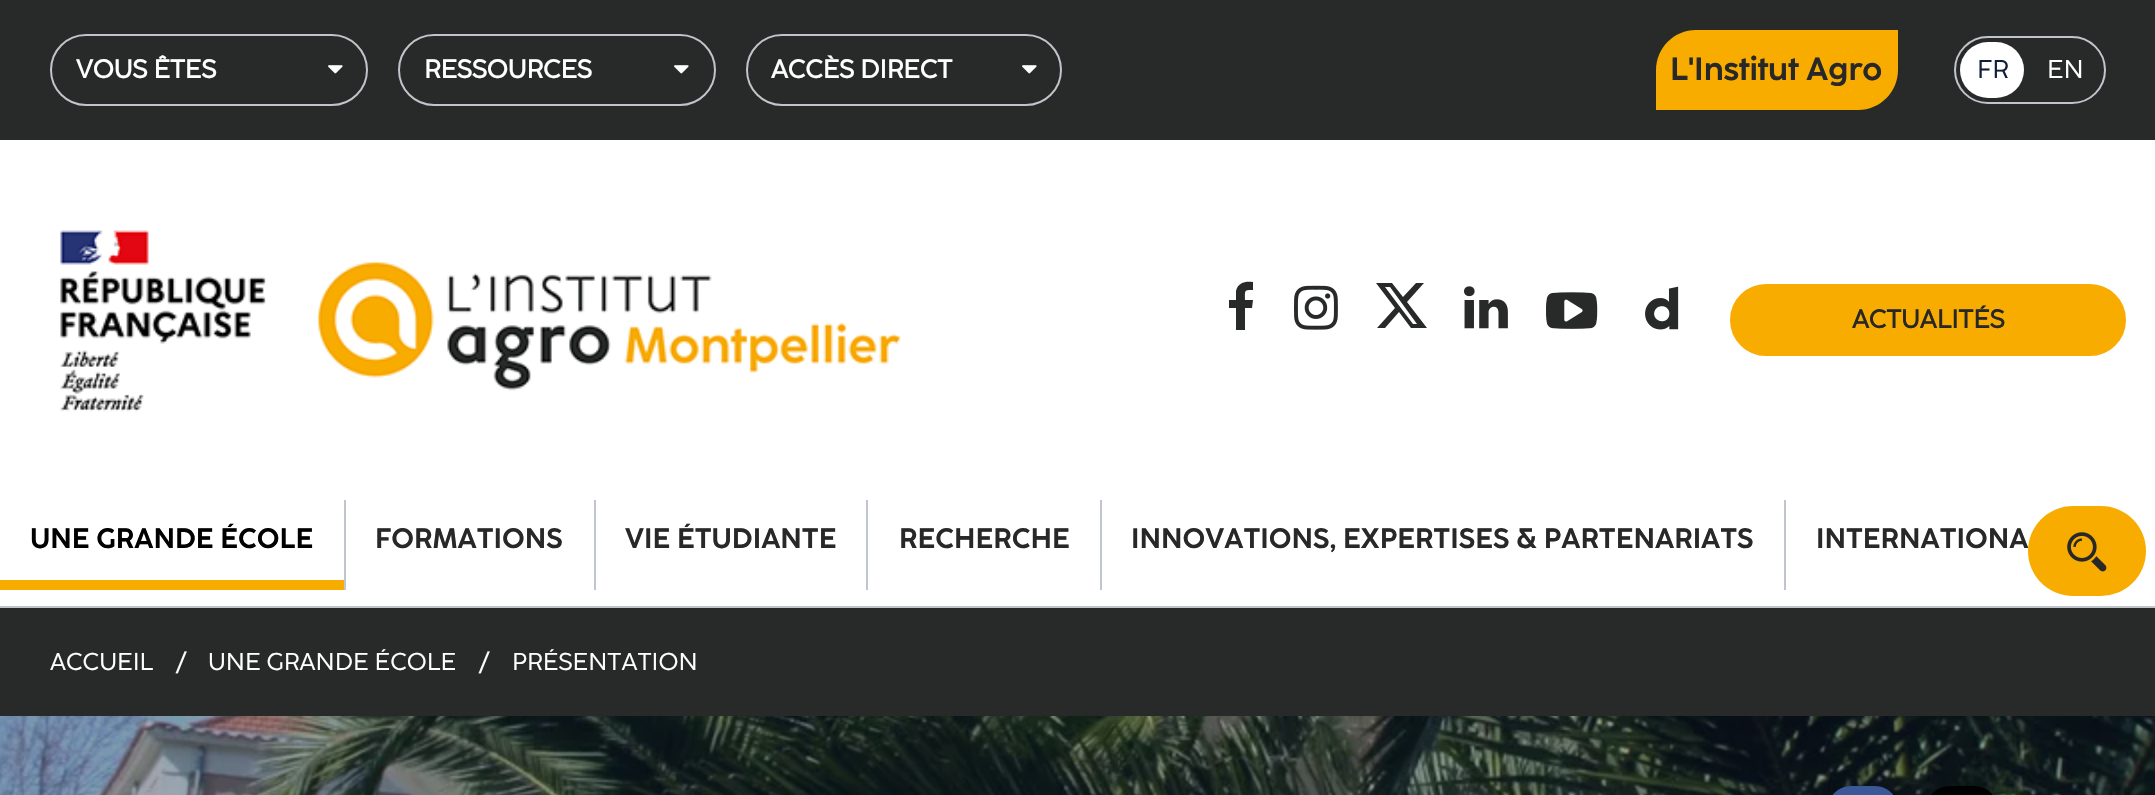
#include "include/core/SkBlurTypes.h"
#include "include/core/SkCanvas.h"
#include "include/core/SkData.h"
#include "include/core/SkFont.h"
#include "include/core/SkFontMgr.h"
#include "include/core/SkImage.h"
#include "include/core/SkMaskFilter.h"
#include "include/core/SkPaint.h"
#include "include/core/SkPathBuilder.h"
#include "include/core/SkTextBlob.h"
#include "include/effects/SkDashPathEffect.h"
#include "include/effects/SkGradientShader.h"
#include "include/utils/SkParsePath.h"

extern sk_sp<SkFontMgr> fontMgr;

static SkFont font(const char* family, int weight, float size, bool italic = false) {
    SkFontStyle style(weight, SkFontStyle::kNormal_Width,
        italic ? SkFontStyle::kItalic_Slant : SkFontStyle::kUpright_Slant);
    SkFont result(fontMgr->matchFamilyStyle(family, style), size);
    result.setSubpixel(true);
    return result;
}

static void drawLabel(SkCanvas* canvas, const char* s, float x, float y, const SkFont& font, SkColor color) {
    SkPaint ink(SkColor4f::FromColor(color));
    ink.setAntiAlias(true);
    canvas->drawString(s, x, y, font, ink);
}

static void fillRect(SkCanvas* canvas, float x, float y, float w, float h, SkColor color) {
    SkPaint ink(SkColor4f::FromColor(color));
    ink.setAntiAlias(true);
    canvas->drawRect(SkRect::MakeXYWH(x, y, w, h), ink);
}

static void fillRRect(SkCanvas* canvas, float x, float y, float w, float h, float radius, SkColor color) {
    SkPaint ink(SkColor4f::FromColor(color));
    ink.setAntiAlias(true);
    canvas->drawRoundRect(SkRect::MakeXYWH(x, y, w, h), radius, radius, ink);
}

static void drawPhoto(SkCanvas* canvas, const char* path, float x, float y, float w, float h) {
    auto image = SkImages::DeferredFromEncodedData(SkData::MakeFromFileName(path));
    canvas->drawImageRect(image, SkRect::MakeXYWH(x, y, w, h), SkSamplingOptions());
}

static SkPath parsePath(const char* data, bool evenOdd = false) {
    SkPath result = *SkParsePath::FromSVGString(data);
    if (evenOdd) result.setFillType(SkPathFillType::kEvenOdd);
    return result;
}

void draw(SkCanvas* canvas) {
    SkPaint paint;
    paint.setAntiAlias(true);
    canvas->clear(0xFFFFFFFF);
    fillRect(canvas, 0, 0, 2155, 140, 0xFF282929);
    paint.setStroke(true);
    paint.setStrokeWidth(2);
    paint.setColor(0xFFC0C5CB);
    canvas->drawRoundRect(SkRect::MakeXYWH(51, 35, 316, 70), 35, 35, paint);
    SkFont font1 = font("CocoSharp", 700, 25.5f);
    drawLabel(canvas, "VOUS ÊTES", 76, 78, font1, 0xFFFFFFFF);
    drawPhoto(canvas, "assets/img1.png", 328, 65, 15, 9);
    canvas->drawRoundRect(SkRect::MakeXYWH(399, 35, 316, 70), 35, 35, paint);
    drawLabel(canvas, "RESSOURCES", 424, 78, font1, 0xFFFFFFFF);
    drawPhoto(canvas, "assets/img1.png", 674, 65, 15, 9);
    canvas->drawRoundRect(SkRect::MakeXYWH(747, 35, 314, 70), 35, 35, paint);
    drawLabel(canvas, "ACCÈS DIRECT", 771, 78, font1, 0xFFFFFFFF);
    drawPhoto(canvas, "assets/img1.png", 1022, 65, 15, 9);
    paint.setStroke(false);
    paint.setColor(0xFFF8AC00);
    canvas->drawPath(parsePath("M1696 30H1898V70C1898 92 1880 110 1858 110H1656V70C1656 48 1674 30 1696 30Z"), paint);
    SkFont font2 = font("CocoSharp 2", 700, 32);
    drawLabel(canvas, "L'Institut Agro", 1670, 80, font2, 0xFF292828);
    paint.setStroke(true);
    paint.setColor(0xFFC0C5CB);
    canvas->drawRoundRect(SkRect::MakeXYWH(1955, 37, 150, 66), 33, 33, paint);
    fillRRect(canvas, 1960, 42, 64, 56, 28, 0xFFFFFFFF);
    SkFont font3 = font("CocoSharp", 400, 25.5f);
    drawLabel(canvas, "FR", 1977, 78, font3, 0xFF121E38);
    drawLabel(canvas, "EN", 2047, 78, font3, 0xFFFFFFFF);
    drawPhoto(canvas, "assets/img2.png", 60, 230, 842, 182);
    paint.setStroke(false);
    paint.setColor(0xFF282929);
    canvas->drawPath(parsePath("M1253 282C1246 281 1238 282 1236 291V300H1229V308H1236V330H1245V308H1252L1253 300H1245C1245 290 1244 290 1253 290Z"), paint);
    drawPhoto(canvas, "assets/img3.png", 1294, 285, 44, 45);
    canvas->drawPath(parsePath("M1416 283L1403 297L1392 283H1376L1395 308L1377 328H1385L1399 312L1411 328H1427L1407 302L1424 283ZM1413 324L1385 287H1390L1417 324Z"), paint);
    drawPhoto(canvas, "assets/img4.png", 1464, 286, 44, 43);
    drawPhoto(canvas, "assets/img5.png", 1546, 292, 52, 37);
    drawPhoto(canvas, "assets/img6.png", 1645, 286, 34, 44);
    paint.setColor(0xFFF8AC00);
    canvas->drawRoundRect(SkRect::MakeXYWH(1731, 285, 394, 70), 35, 35, paint);
    paint.setStroke(true);
    canvas->drawRoundRect(SkRect::MakeXYWH(1731, 285, 394, 70), 35, 35, paint);
    drawLabel(canvas, "ACTUALITÉS", 1852, 328, font1, 0xFF292828);
    fillRect(canvas, 0, 606, 2155, 2, 0xFFC0C5CB);
    fillRect(canvas, 344, 500, 2, 90, 0xFFC0C5CB);
    fillRect(canvas, 0, 580, 344, 10, 0xFFF8AC00);
    SkFont font4 = font("CocoSharp 2", 700, 28);
    drawLabel(canvas, "UNE GRANDE ÉCOLE", 30, 548, font4, 0xFF000000);
    fillRect(canvas, 594, 500, 2, 90, 0xFFC0C5CB);
    drawLabel(canvas, "FORMATIONS", 375, 548, font4, 0xFF292828);
    fillRect(canvas, 866, 500, 2, 90, 0xFFC0C5CB);
    drawLabel(canvas, "VIE ÉTUDIANTE", 625, 548, font4, 0xFF292828);
    fillRect(canvas, 1100, 500, 2, 90, 0xFFC0C5CB);
    drawLabel(canvas, "RECHERCHE", 899, 548, font4, 0xFF292828);
    fillRect(canvas, 1784, 500, 2, 90, 0xFFC0C5CB);
    drawLabel(canvas, "INNOVATIONS, EXPERTISES & PARTENARIATS", 1131, 548, font4, 0xFF292828);
    drawLabel(canvas, "INTERNATIONA", 1816, 548, font4, 0xFF292828);
    fillRRect(canvas, 2028, 506, 118, 90, 45, 0xFFF8AC00);
    drawPhoto(canvas, "assets/img7.png", 2067, 532, 40, 40);
    fillRect(canvas, 0, 608, 2155, 108, 0xFF282929);
    SkFont font5 = font("CocoSharp", 400, 24.25f);
    drawLabel(canvas, "ACCUEIL", 50, 670, font5, 0xFFFFFFFF);
    drawLabel(canvas, "/", 176, 670, font5, 0xFFFFFFFF);
    drawLabel(canvas, "UNE GRANDE ÉCOLE", 208, 670, font5, 0xFFFFFFFF);
    drawLabel(canvas, "/", 479, 670, font5, 0xFFFFFFFF);
    drawLabel(canvas, "PRÉSENTATION", 512, 670, font5, 0xFFFFFFFF);
    drawPhoto(canvas, "assets/img8.png", 0, 716, 2155, 79);
    paint.setStroke(false);
    paint.setColor(0xFF3B5998);
    canvas->drawRoundRect(SkRect::MakeXYWH(1829, 787, 68, 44), 34, 34, paint);
    paint.setStroke(true);
    canvas->drawRoundRect(SkRect::MakeXYWH(1829, 787, 68, 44), 34, 34, paint);
    paint.setStroke(false);
    paint.setColor(0xFF000000);
    canvas->drawRoundRect(SkRect::MakeXYWH(1927, 787, 70, 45), 35, 35, paint);
    paint.setStroke(true);
    canvas->drawRoundRect(SkRect::MakeXYWH(1927, 787, 70, 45), 35, 35, paint);
}
